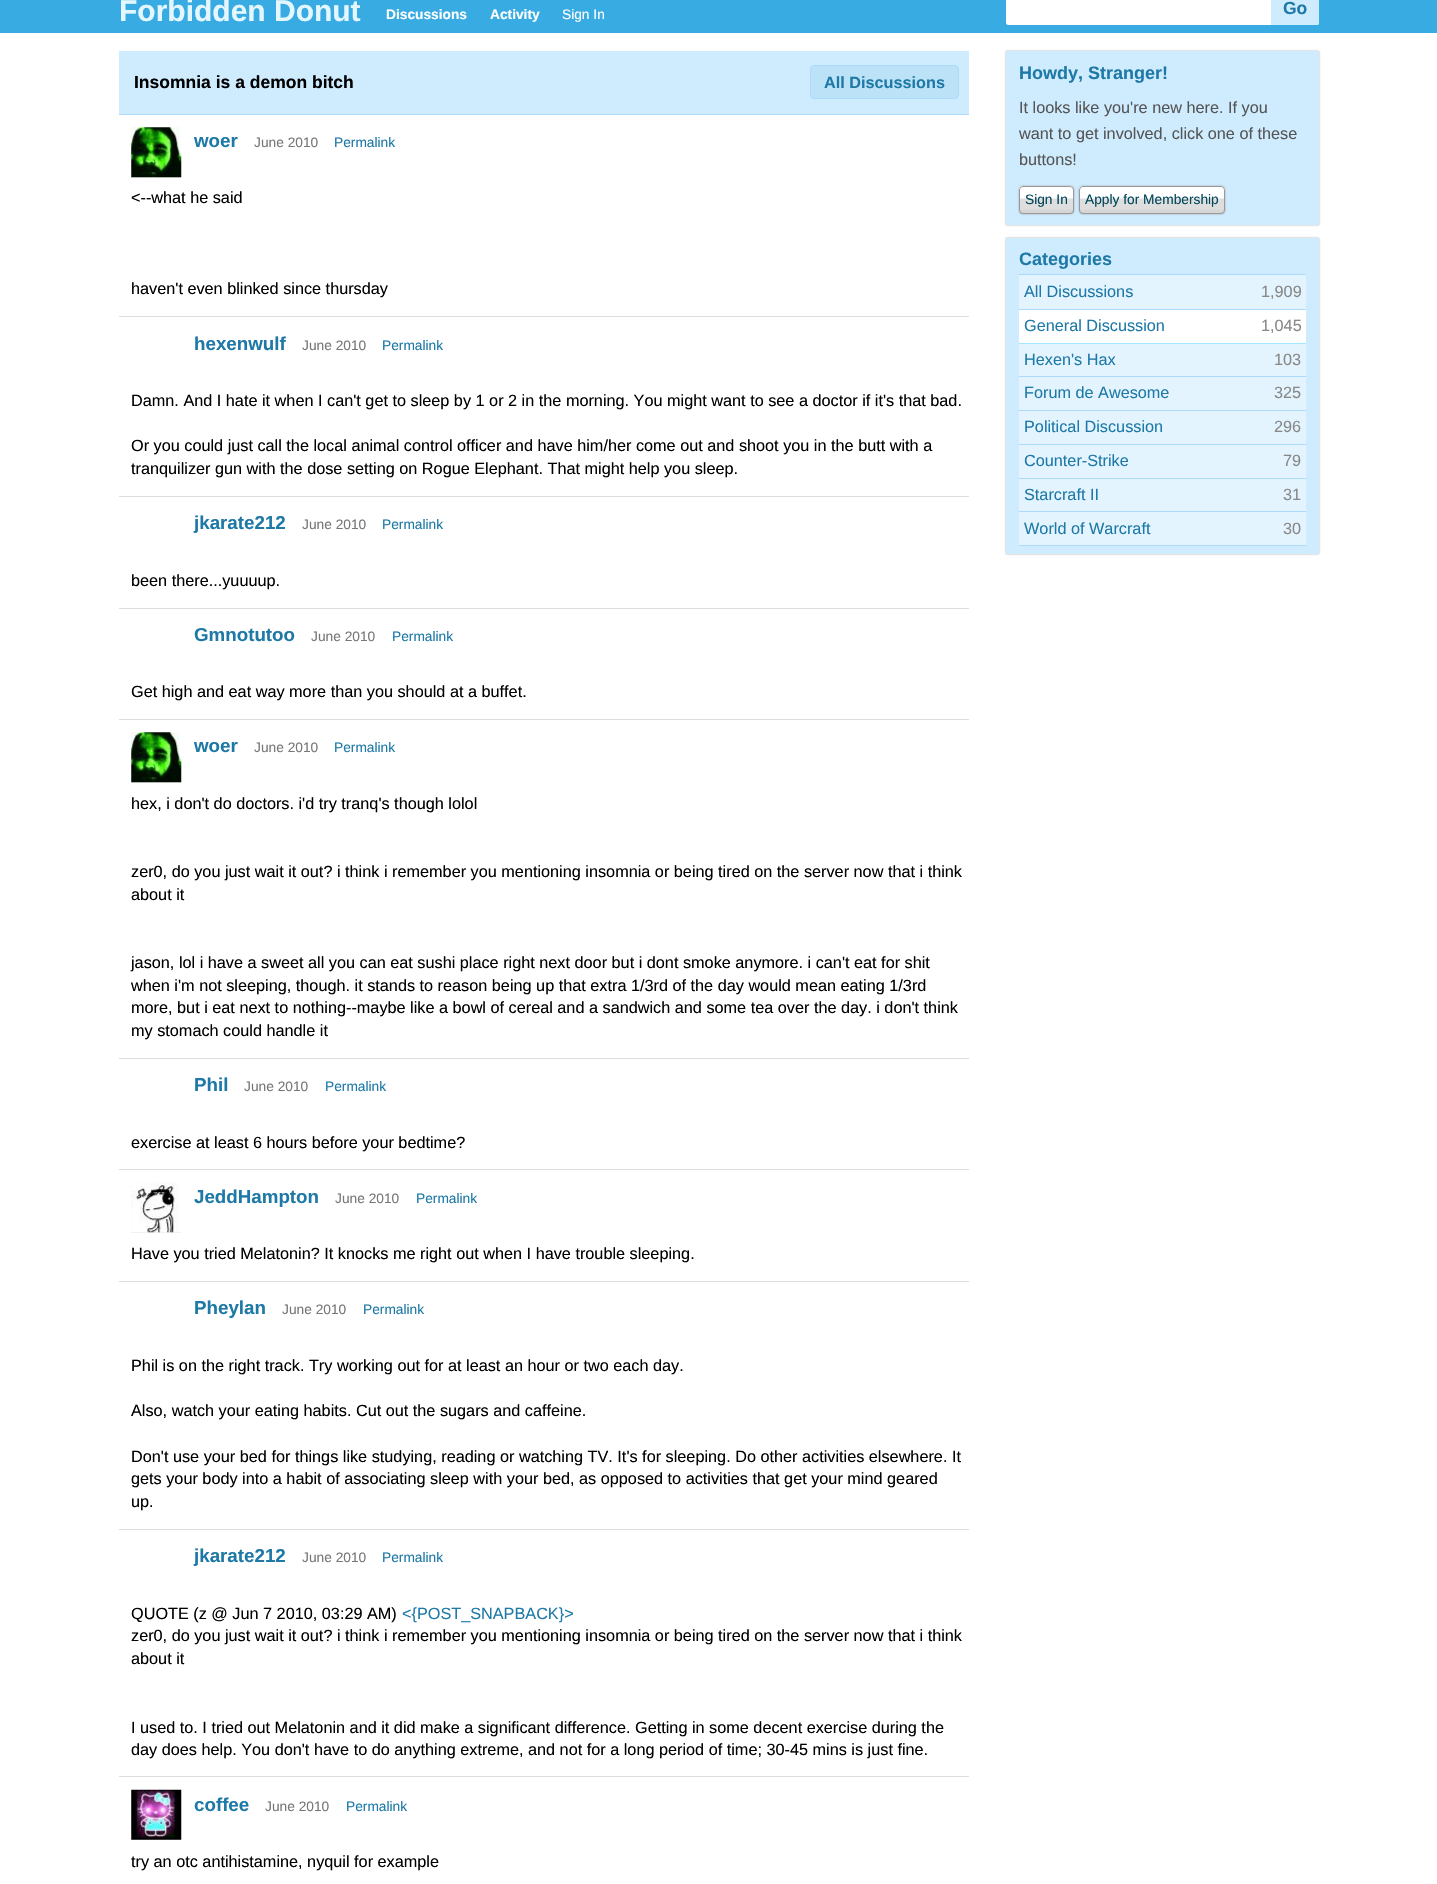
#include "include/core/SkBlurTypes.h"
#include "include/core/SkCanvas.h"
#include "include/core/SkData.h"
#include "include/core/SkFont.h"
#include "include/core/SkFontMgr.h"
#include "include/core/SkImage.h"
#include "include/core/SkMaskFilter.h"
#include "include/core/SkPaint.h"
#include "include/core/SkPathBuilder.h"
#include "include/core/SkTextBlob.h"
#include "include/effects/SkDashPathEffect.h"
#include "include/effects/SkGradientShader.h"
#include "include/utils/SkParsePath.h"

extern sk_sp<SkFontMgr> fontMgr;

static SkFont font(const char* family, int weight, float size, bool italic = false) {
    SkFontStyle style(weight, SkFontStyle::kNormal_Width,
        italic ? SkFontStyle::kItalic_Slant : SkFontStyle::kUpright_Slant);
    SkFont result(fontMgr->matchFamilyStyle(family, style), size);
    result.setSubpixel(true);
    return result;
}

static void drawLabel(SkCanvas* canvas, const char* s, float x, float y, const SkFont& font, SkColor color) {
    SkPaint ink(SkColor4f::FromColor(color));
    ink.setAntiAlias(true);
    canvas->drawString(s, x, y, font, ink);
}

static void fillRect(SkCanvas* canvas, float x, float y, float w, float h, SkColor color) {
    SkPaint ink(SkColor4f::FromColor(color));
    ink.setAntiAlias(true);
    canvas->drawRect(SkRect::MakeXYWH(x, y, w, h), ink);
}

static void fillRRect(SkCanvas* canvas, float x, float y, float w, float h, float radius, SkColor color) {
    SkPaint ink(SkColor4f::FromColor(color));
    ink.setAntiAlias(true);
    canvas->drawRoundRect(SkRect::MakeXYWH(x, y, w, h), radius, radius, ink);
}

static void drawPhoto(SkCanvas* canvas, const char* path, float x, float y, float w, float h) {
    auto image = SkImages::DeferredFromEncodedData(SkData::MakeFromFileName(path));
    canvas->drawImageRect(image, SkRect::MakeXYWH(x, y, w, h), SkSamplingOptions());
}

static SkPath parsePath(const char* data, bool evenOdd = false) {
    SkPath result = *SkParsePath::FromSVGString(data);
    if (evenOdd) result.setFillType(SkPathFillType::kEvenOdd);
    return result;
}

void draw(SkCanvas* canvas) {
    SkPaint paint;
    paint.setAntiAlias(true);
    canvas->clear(0xFFFFFFFF);
    fillRect(canvas, 0, 0, 1437, 33, 0xFF38ABE3);
    SkFont font1 = font("Liberation Sans", 700, 30);
    drawLabel(canvas, "Forbidden Donut", 119, 21, font1, 0xFFE4F7FE);
    SkFont font2 = font("Liberation Sans", 700, 13.75f);
    drawLabel(canvas, "Discussions", 386, 19, font2, 0xFFFFFFFF);
    drawLabel(canvas, "Activity", 490, 19, font2, 0xFFFFFFFF);
    SkFont font3 = font("Liberation Sans", 400, 13.75f);
    drawLabel(canvas, "Sign In", 562, 19, font3, 0xFFFFFFFF);
    fillRRect(canvas, 1006, -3, 313, 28, 2.5f, 0xFFFFFFFF);
    paint.setColor(0xFFCFECFF);
    canvas->drawPath(parsePath("M1271-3H1316.5C1318-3 1319-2 1319-.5V22.5C1319 24 1318 25 1316.5 25H1271Z"), paint);
    SkFont font4 = font("Liberation Sans", 700, 17.5f);
    drawLabel(canvas, "Go", 1283, 14, font4, 0xFF1E79A7);
    fillRect(canvas, 119, 51, 850, 63, 0xFFCFECFF);
    fillRect(canvas, 119, 114, 850, 1, 0xFFABDAFB);
    drawLabel(canvas, "Insomnia is a demon bitch", 134, 88, font4, 0xFF000000);
    paint.setColor(0xFFBBE2F7);
    canvas->drawRoundRect(SkRect::MakeXYWH(810.5f, 65.5f, 148, 33), 3.5f, 3.5f, paint);
    paint.setStroke(true);
    paint.setStrokeWidth(1);
    paint.setColor(0xFFABDAFB);
    canvas->drawRoundRect(SkRect::MakeXYWH(810.5f, 65.5f, 148, 33), 3.5f, 3.5f, paint);
    SkFont font5 = font("Liberation Sans", 700, 16.25f);
    drawLabel(canvas, "All Discussions", 824, 88, font5, 0xFF1E79A7);
    fillRect(canvas, 119, 316, 850, 1, 0xFFDDDDDD);
    fillRect(canvas, 131, 128, 50, 50, 0xFFEEEEEE);
    drawPhoto(canvas, "assets/img1.png", 131, 127, 51, 51);
    SkFont font6 = font("Liberation Sans", 700, 18.75f);
    drawLabel(canvas, "woer", 194, 147, font6, 0xFF1E79A7);
    drawLabel(canvas, "June 2010", 254, 147, font3, 0xFF777777);
    drawLabel(canvas, "Permalink", 334, 147, font3, 0xFF1E79A7);
    SkFont font7 = font("Liberation Sans", 400, 16.25f);
    drawLabel(canvas, "<--what he said", 131, 203, font7, 0xFF000000);
    drawLabel(canvas, "haven't even blinked since thursday", 131, 294, font7, 0xFF000000);
    fillRect(canvas, 119, 496, 850, 1, 0xFFDDDDDD);
    drawLabel(canvas, "hexenwulf", 194, 350, font6, 0xFF1E79A7);
    drawLabel(canvas, "June 2010", 302, 350, font3, 0xFF777777);
    drawLabel(canvas, "Permalink", 382, 350, font3, 0xFF1E79A7);
    drawLabel(canvas, "Damn. And I hate it when I can't get to sleep by 1 or 2 in the morning. You might want to see a doctor if it's that bad.", 131, 406, font7, 0xFF000000);
    drawLabel(canvas, "Or you could just call the local animal control officer and have him/her come out and shoot you in the butt with a", 131, 451, font7, 0xFF000000);
    drawLabel(canvas, "tranquilizer gun with the dose setting on Rogue Elephant. That might help you sleep.", 131, 474, font7, 0xFF000000);
    fillRect(canvas, 119, 608, 850, 1, 0xFFDDDDDD);
    drawLabel(canvas, "jkarate212", 194, 529, font6, 0xFF1E79A7);
    drawLabel(canvas, "June 2010", 302, 529, font3, 0xFF777777);
    drawLabel(canvas, "Permalink", 382, 529, font3, 0xFF1E79A7);
    drawLabel(canvas, "been there...yuuuup.", 131, 586, font7, 0xFF000000);
    fillRect(canvas, 119, 719, 850, 1, 0xFFDDDDDD);
    drawLabel(canvas, "Gmnotutoo", 194, 641, font6, 0xFF1E79A7);
    drawLabel(canvas, "June 2010", 311, 641, font3, 0xFF777777);
    drawLabel(canvas, "Permalink", 392, 641, font3, 0xFF1E79A7);
    drawLabel(canvas, "Get high and eat way more than you should at a buffet.", 131, 697, font7, 0xFF000000);
    fillRect(canvas, 119, 1058, 850, 1, 0xFFDDDDDD);
    fillRect(canvas, 131, 733, 50, 50, 0xFFEEEEEE);
    drawPhoto(canvas, "assets/img1.png", 131, 732, 51, 51);
    drawLabel(canvas, "woer", 194, 752, font6, 0xFF1E79A7);
    drawLabel(canvas, "June 2010", 254, 752, font3, 0xFF777777);
    drawLabel(canvas, "Permalink", 334, 752, font3, 0xFF1E79A7);
    drawLabel(canvas, "hex, i don't do doctors. i'd try tranq's though lolol", 131, 809, font7, 0xFF000000);
    drawLabel(canvas, "zer0, do you just wait it out? i think i remember you mentioning insomnia or being tired on the server now that i think", 131, 877, font7, 0xFF000000);
    drawLabel(canvas, "about it", 131, 900, font7, 0xFF000000);
    drawLabel(canvas, "jason, lol i have a sweet all you can eat sushi place right next door but i dont smoke anymore. i can't eat for shit", 131, 968, font7, 0xFF000000);
    drawLabel(canvas, "when i'm not sleeping, though. it stands to reason being up that extra 1/3rd of the day would mean eating 1/3rd", 131, 991, font7, 0xFF000000);
    drawLabel(canvas, "more, but i eat next to nothing--maybe like a bowl of cereal and a sandwich and some tea over the day. i don't think", 131, 1013, font7, 0xFF000000);
    drawLabel(canvas, "my stomach could handle it", 131, 1036, font7, 0xFF000000);
    fillRect(canvas, 119, 1169, 850, 1, 0xFFDDDDDD);
    drawLabel(canvas, "Phil", 194, 1091, font6, 0xFF1E79A7);
    drawLabel(canvas, "June 2010", 244, 1091, font3, 0xFF777777);
    drawLabel(canvas, "Permalink", 325, 1091, font3, 0xFF1E79A7);
    drawLabel(canvas, "exercise at least 6 hours before your bedtime?", 131, 1148, font7, 0xFF000000);
    fillRect(canvas, 119, 1281, 850, 1, 0xFFDDDDDD);
    fillRect(canvas, 131, 1183, 50, 50, 0xFFEEEEEE);
    drawPhoto(canvas, "assets/img2.png", 131, 1182, 50, 51);
    drawLabel(canvas, "JeddHampton", 194, 1203, font6, 0xFF1E79A7);
    drawLabel(canvas, "June 2010", 335, 1203, font3, 0xFF777777);
    drawLabel(canvas, "Permalink", 416, 1203, font3, 0xFF1E79A7);
    drawLabel(canvas, "Have you tried Melatonin? It knocks me right out when I have trouble sleeping.", 131, 1259, font7, 0xFF000000);
    fillRect(canvas, 119, 1529, 850, 1, 0xFFDDDDDD);
    drawLabel(canvas, "Pheylan", 194, 1314, font6, 0xFF1E79A7);
    drawLabel(canvas, "June 2010", 282, 1314, font3, 0xFF777777);
    drawLabel(canvas, "Permalink", 363, 1314, font3, 0xFF1E79A7);
    drawLabel(canvas, "Phil is on the right track. Try working out for at least an hour or two each day.", 131, 1371, font7, 0xFF000000);
    drawLabel(canvas, "Also, watch your eating habits. Cut out the sugars and caffeine.", 131, 1416, font7, 0xFF000000);
    drawLabel(canvas, "Don't use your bed for things like studying, reading or watching TV. It's for sleeping. Do other activities elsewhere. It", 131, 1462, font7, 0xFF000000);
    drawLabel(canvas, "gets your body into a habit of associating sleep with your bed, as opposed to activities that get your mind geared", 131, 1484, font7, 0xFF000000);
    drawLabel(canvas, "up.", 131, 1507, font7, 0xFF000000);
    fillRect(canvas, 119, 1776, 850, 1, 0xFFDDDDDD);
    drawLabel(canvas, "jkarate212", 194, 1562, font6, 0xFF1E79A7);
    drawLabel(canvas, "June 2010", 302, 1562, font3, 0xFF777777);
    drawLabel(canvas, "Permalink", 382, 1562, font3, 0xFF1E79A7);
    drawLabel(canvas, "QUOTE (z @ Jun 7 2010, 03:29 AM)", 131, 1619, font7, 0xFF000000);
    drawLabel(canvas, "<{POST_SNAPBACK}>", 402, 1619, font7, 0xFF1E79A7);
    drawLabel(canvas, "zer0, do you just wait it out? i think i remember you mentioning insomnia or being tired on the server now that i think", 131, 1641, font7, 0xFF000000);
    drawLabel(canvas, "about it", 131, 1664, font7, 0xFF000000);
    drawLabel(canvas, "I used to. I tried out Melatonin and it did make a significant difference. Getting in some decent exercise during the", 131, 1733, font7, 0xFF000000);
    drawLabel(canvas, "day does help. You don't have to do anything extreme, and not for a long period of time; 30-45 mins is just fine.", 131, 1755, font7, 0xFF000000);
    fillRect(canvas, 131, 1790, 50, 50, 0xFFEEEEEE);
    drawPhoto(canvas, "assets/img3.png", 131, 1789, 51, 51);
    drawLabel(canvas, "coffee", 194, 1811, font6, 0xFF1E79A7);
    drawLabel(canvas, "June 2010", 265, 1811, font3, 0xFF777777);
    drawLabel(canvas, "Permalink", 346, 1811, font3, 0xFF1E79A7);
    drawLabel(canvas, "try an otc antihistamine, nyquil for example", 131, 1867, font7, 0xFF000000);
    paint.setStroke(false);
    paint.setColor(0xFF999999);
    paint.setMaskFilter(SkMaskFilter::MakeBlur(kNormal_SkBlurStyle, 1));
    canvas->drawRoundRect(SkRect::MakeXYWH(1006, 51, 313, 174), 1, 1, paint);
    paint.setMaskFilter(nullptr);
    fillRRect(canvas, 1006, 51, 313, 174, 1, 0xFFCFECFF);
    SkFont font8 = font("Liberation Sans", 700, 18);
    drawLabel(canvas, "Howdy, Stranger!", 1019, 79, font8, 0xFF1E79A7);
    drawLabel(canvas, "It looks like you're new here. If you", 1019, 113, font7, 0xFF555555);
    drawLabel(canvas, "want to get involved, click one of these", 1019, 139, font7, 0xFF555555);
    drawLabel(canvas, "buttons!", 1019, 165, font7, 0xFF555555);
    paint.setMaskFilter(SkMaskFilter::MakeBlur(kNormal_SkBlurStyle, 1));
    canvas->drawRoundRect(SkRect::MakeXYWH(1019, 186, 55, 28), 4, 4, paint);
    paint.setMaskFilter(nullptr);
    drawPhoto(canvas, "assets/img4.png", 1019, 186, 55, 28);
    paint.setMaskFilter(SkMaskFilter::MakeBlur(kNormal_SkBlurStyle, 1));
    canvas->drawRoundRect(SkRect::MakeXYWH(1079, 186, 146, 28), 4, 4, paint);
    paint.setMaskFilter(nullptr);
    drawPhoto(canvas, "assets/img5.png", 1079, 186, 146, 28);
    paint.setStroke(true);
    canvas->drawRoundRect(SkRect::MakeXYWH(1019.5f, 186.5f, 54, 27), 3.5f, 3.5f, paint);
    drawLabel(canvas, "Sign In", 1025, 204, font3, 0xFF02475A);
    canvas->drawRoundRect(SkRect::MakeXYWH(1079.5f, 186.5f, 145, 27), 3.5f, 3.5f, paint);
    drawLabel(canvas, "Apply for Membership", 1085, 204, font3, 0xFF02475A);
    paint.setStroke(false);
    paint.setMaskFilter(SkMaskFilter::MakeBlur(kNormal_SkBlurStyle, 1));
    canvas->drawRoundRect(SkRect::MakeXYWH(1006, 238, 313, 316), 1, 1, paint);
    paint.setMaskFilter(nullptr);
    fillRRect(canvas, 1006, 238, 313, 316, 1, 0xFFCFECFF);
    drawLabel(canvas, "Categories", 1019, 265, font8, 0xFF1E79A7);
    fillRect(canvas, 1019, 274, 287, 1, 0xFFABDAFB);
    fillRect(canvas, 1019, 275, 287, 34, 0xFFE3F4FF);
    fillRect(canvas, 1019, 309, 287, 1, 0xFFABDAFB);
    drawLabel(canvas, "All Discussions", 1024, 297, font7, 0xFF1E79A7);
    drawLabel(canvas, "1,909", 1261, 297, font7, 0xFF888888);
    fillRect(canvas, 1019, 310, 287, 33, 0xFFFFFFFF);
    fillRect(canvas, 1019, 343, 287, 1, 0xFFA3E6FF);
    drawLabel(canvas, "General Discussion", 1024, 331, font7, 0xFF1E79A7);
    drawLabel(canvas, "1,045", 1261, 331, font7, 0xFF888888);
    fillRect(canvas, 1019, 344, 287, 66, 0xFFE3F4FF);
    fillRect(canvas, 1019, 376, 287, 1, 0xFFABDAFB);
    drawLabel(canvas, "Hexen's Hax", 1024, 365, font7, 0xFF1E79A7);
    drawLabel(canvas, "103", 1274, 365, font7, 0xFF888888);
    fillRect(canvas, 1019, 410, 287, 1, 0xFFABDAFB);
    drawLabel(canvas, "Forum de Awesome", 1024, 398, font7, 0xFF1E79A7);
    drawLabel(canvas, "325", 1274, 398, font7, 0xFF888888);
    fillRect(canvas, 1019, 411, 287, 33, 0xFFE3F4FF);
    fillRect(canvas, 1019, 444, 287, 1, 0xFFABDAFB);
    drawLabel(canvas, "Political Discussion", 1024, 432, font7, 0xFF1E79A7);
    drawLabel(canvas, "296", 1274, 432, font7, 0xFF888888);
    fillRect(canvas, 1019, 445, 287, 33, 0xFFE3F4FF);
    fillRect(canvas, 1019, 478, 287, 1, 0xFFABDAFB);
    drawLabel(canvas, "Counter-Strike", 1024, 466, font7, 0xFF1E79A7);
    drawLabel(canvas, "79", 1283, 466, font7, 0xFF888888);
    fillRect(canvas, 1019, 479, 287, 66, 0xFFE3F4FF);
    fillRect(canvas, 1019, 511, 287, 1, 0xFFABDAFB);
    drawLabel(canvas, "Starcraft II", 1024, 500, font7, 0xFF1E79A7);
    drawLabel(canvas, "31", 1283, 500, font7, 0xFF888888);
    fillRect(canvas, 1019, 545, 287, 1, 0xFFABDAFB);
    drawLabel(canvas, "World of Warcraft", 1024, 534, font7, 0xFF1E79A7);
    drawLabel(canvas, "30", 1283, 534, font7, 0xFF888888);
}
